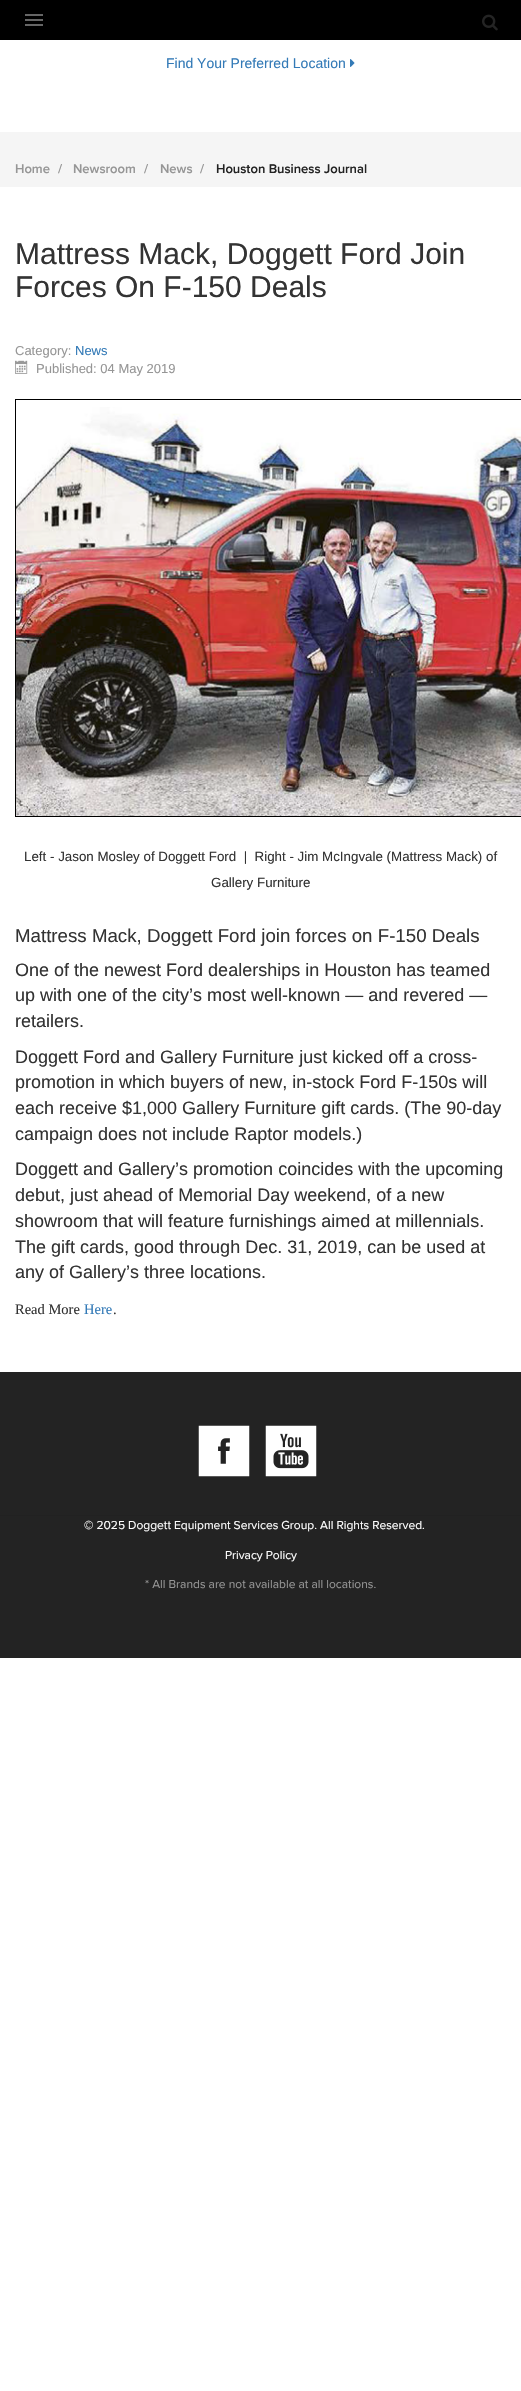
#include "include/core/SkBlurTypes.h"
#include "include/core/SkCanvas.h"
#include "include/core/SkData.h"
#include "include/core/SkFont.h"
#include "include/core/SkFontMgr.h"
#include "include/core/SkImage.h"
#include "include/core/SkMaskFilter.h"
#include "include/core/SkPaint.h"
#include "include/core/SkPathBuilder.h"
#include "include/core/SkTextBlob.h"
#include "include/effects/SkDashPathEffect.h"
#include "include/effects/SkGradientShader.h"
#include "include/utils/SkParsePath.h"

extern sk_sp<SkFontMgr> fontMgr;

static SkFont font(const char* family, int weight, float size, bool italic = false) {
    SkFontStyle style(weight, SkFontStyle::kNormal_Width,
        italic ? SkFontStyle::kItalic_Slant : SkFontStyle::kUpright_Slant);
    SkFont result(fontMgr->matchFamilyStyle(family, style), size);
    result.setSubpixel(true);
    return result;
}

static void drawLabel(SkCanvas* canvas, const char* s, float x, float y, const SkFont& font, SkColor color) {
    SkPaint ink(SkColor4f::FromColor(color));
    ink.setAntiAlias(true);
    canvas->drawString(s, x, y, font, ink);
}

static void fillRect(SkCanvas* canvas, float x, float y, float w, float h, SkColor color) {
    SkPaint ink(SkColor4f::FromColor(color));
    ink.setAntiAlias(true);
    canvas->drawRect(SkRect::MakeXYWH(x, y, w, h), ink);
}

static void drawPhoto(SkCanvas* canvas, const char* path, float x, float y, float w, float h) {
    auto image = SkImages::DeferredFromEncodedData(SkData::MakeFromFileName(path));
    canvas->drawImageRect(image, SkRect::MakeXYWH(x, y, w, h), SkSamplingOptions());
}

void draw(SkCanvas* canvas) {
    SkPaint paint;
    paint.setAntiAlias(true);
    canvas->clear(0xFFFFFFFF);
    fillRect(canvas, 0, 0, 521, 40, 0xFF000000);
    fillRect(canvas, 25, 19, 18, 2, 0xFF666666);
    fillRect(canvas, 25, 14, 18, 2, 0xFF666666);
    fillRect(canvas, 25, 24, 18, 2, 0xFF666666);
    drawPhoto(canvas, "assets/img1.png", 482, 14, 16, 17);
    SkFont font1 = font("Liberation Sans", 400, 14);
    drawLabel(canvas, "Find Your Preferred Location", 166, 68, font1, 0xFF337AB7);
    drawPhoto(canvas, "assets/img2.png", 350, 59, 5, 8);
    fillRect(canvas, 0, 132, 521, 55, 0xFFF5F5F5);
    SkFont font2 = font("Proxima Nova", 600, 13);
    drawLabel(canvas, "Home", 15, 173, font2, 0xFF969696);
    drawLabel(canvas, "/", 58, 173, font2, 0xFF969696);
    drawLabel(canvas, "Newsroom", 73, 173, font2, 0xFF969696);
    drawLabel(canvas, "/", 144, 173, font2, 0xFF969696);
    drawLabel(canvas, "News", 160, 173, font2, 0xFF969696);
    drawLabel(canvas, "/", 200, 173, font2, 0xFF969696);
    drawLabel(canvas, "Houston Business Journal", 216, 173, font2, 0xFF232323);
    SkFont font3 = font("Liberation Sans", 400, 30);
    drawLabel(canvas, "Mattress Mack, Doggett Ford Join", 15, 264, font3, 0xFF333333);
    drawLabel(canvas, "Forces On F-150 Deals", 15, 297, font3, 0xFF333333);
    SkFont font4 = font("Liberation Sans", 400, 13);
    drawLabel(canvas, "Category:", 15, 355, font4, 0xFF969696);
    drawLabel(canvas, "News", 75, 355, font4, 0xFF337AB7);
    drawPhoto(canvas, "assets/img3.png", 15, 360, 13, 14);
    drawLabel(canvas, "Published: 04 May 2019", 36, 373, font4, 0xFF969696);
    paint.setStroke(true);
    paint.setStrokeWidth(1);
    paint.setColor(0xFF000000);
    canvas->drawRect(SkRect::MakeXYWH(15.5f, 399.5f, 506, 417), paint);
    drawPhoto(canvas, "assets/img4.png", 16, 407, 505, 409);
    SkFont font5 = font("Liberation Sans", 400, 13.35f);
    drawLabel(canvas, "Left - Jason Mosley of Doggett Ford  |  Right - Jim McIngvale (Mattress Mack) of", 24, 861, font5, 0xFF333333);
    drawLabel(canvas, "Gallery Furniture", 211, 887, font5, 0xFF333333);
    SkFont font6 = font("Liberation Sans", 400, 18.7f);
    drawLabel(canvas, "Mattress Mack, Doggett Ford join forces on F-150 Deals", 15, 942, font6, 0xFF333333);
    SkFont font7 = font("Liberation Sans", 400, 18);
    drawLabel(canvas, "One of the newest Ford dealerships in Houston has teamed", 15, 976, font7, 0xFF333333);
    drawLabel(canvas, "up with one of the city’s most well-known — and revered —", 15, 1001, font7, 0xFF333333);
    drawLabel(canvas, "retailers.", 15, 1027, font7, 0xFF333333);
    drawLabel(canvas, "Doggett Ford and Gallery Furniture just kicked off a cross-", 15, 1063, font7, 0xFF333333);
    drawLabel(canvas, "promotion in which buyers of new, in-stock Ford F-150s will", 15, 1088, font7, 0xFF333333);
    drawLabel(canvas, "each receive $1,000 Gallery Furniture gift cards. (The 90-day", 15, 1114, font7, 0xFF333333);
    drawLabel(canvas, "campaign does not include Raptor models.)", 15, 1140, font7, 0xFF333333);
    drawLabel(canvas, "Doggett and Gallery’s promotion coincides with the upcoming", 15, 1175, font7, 0xFF333333);
    drawLabel(canvas, "debut, just ahead of Memorial Day weekend, of a new", 15, 1201, font7, 0xFF333333);
    drawLabel(canvas, "showroom that will feature furnishings aimed at millennials.", 15, 1227, font7, 0xFF333333);
    drawLabel(canvas, "The gift cards, good through Dec. 31, 2019, can be used at", 15, 1253, font7, 0xFF333333);
    drawLabel(canvas, "any of Gallery’s three locations.", 15, 1278, font7, 0xFF333333);
    SkFont font8 = font("Liberation Serif", 400, 14.5f);
    drawLabel(canvas, "Read More", 15, 1314, font8, 0xFF333333);
    drawLabel(canvas, "Here", 84, 1314, font8, 0xFF337AB7);
    drawLabel(canvas, ".", 113, 1314, font8, 0xFF333333);
    fillRect(canvas, 0, 1372, 521, 143, 0xFF232323);
    drawPhoto(canvas, "assets/img5.png", 198, 1425, 52, 52);
    drawPhoto(canvas, "assets/img6.png", 265, 1425, 52, 52);
    fillRect(canvas, 0, 1516, 521, 142, 0xFF232323);
    fillRect(canvas, 0, 1515, 521, 1, 0xFF212121);
    SkFont font9 = font("Proxima Nova", 400, 12);
    drawLabel(canvas, "© 2025 Doggett Equipment Services Group. All Rights Reserved.", 84, 1529, font9, 0xFFFFFFFF);
    drawLabel(canvas, "Privacy Policy", 225, 1559, font9, 0xFFFFFFFF);
    drawLabel(canvas, "* All Brands are not available at all locations.", 145, 1588, font9, 0xFF969696);
}
